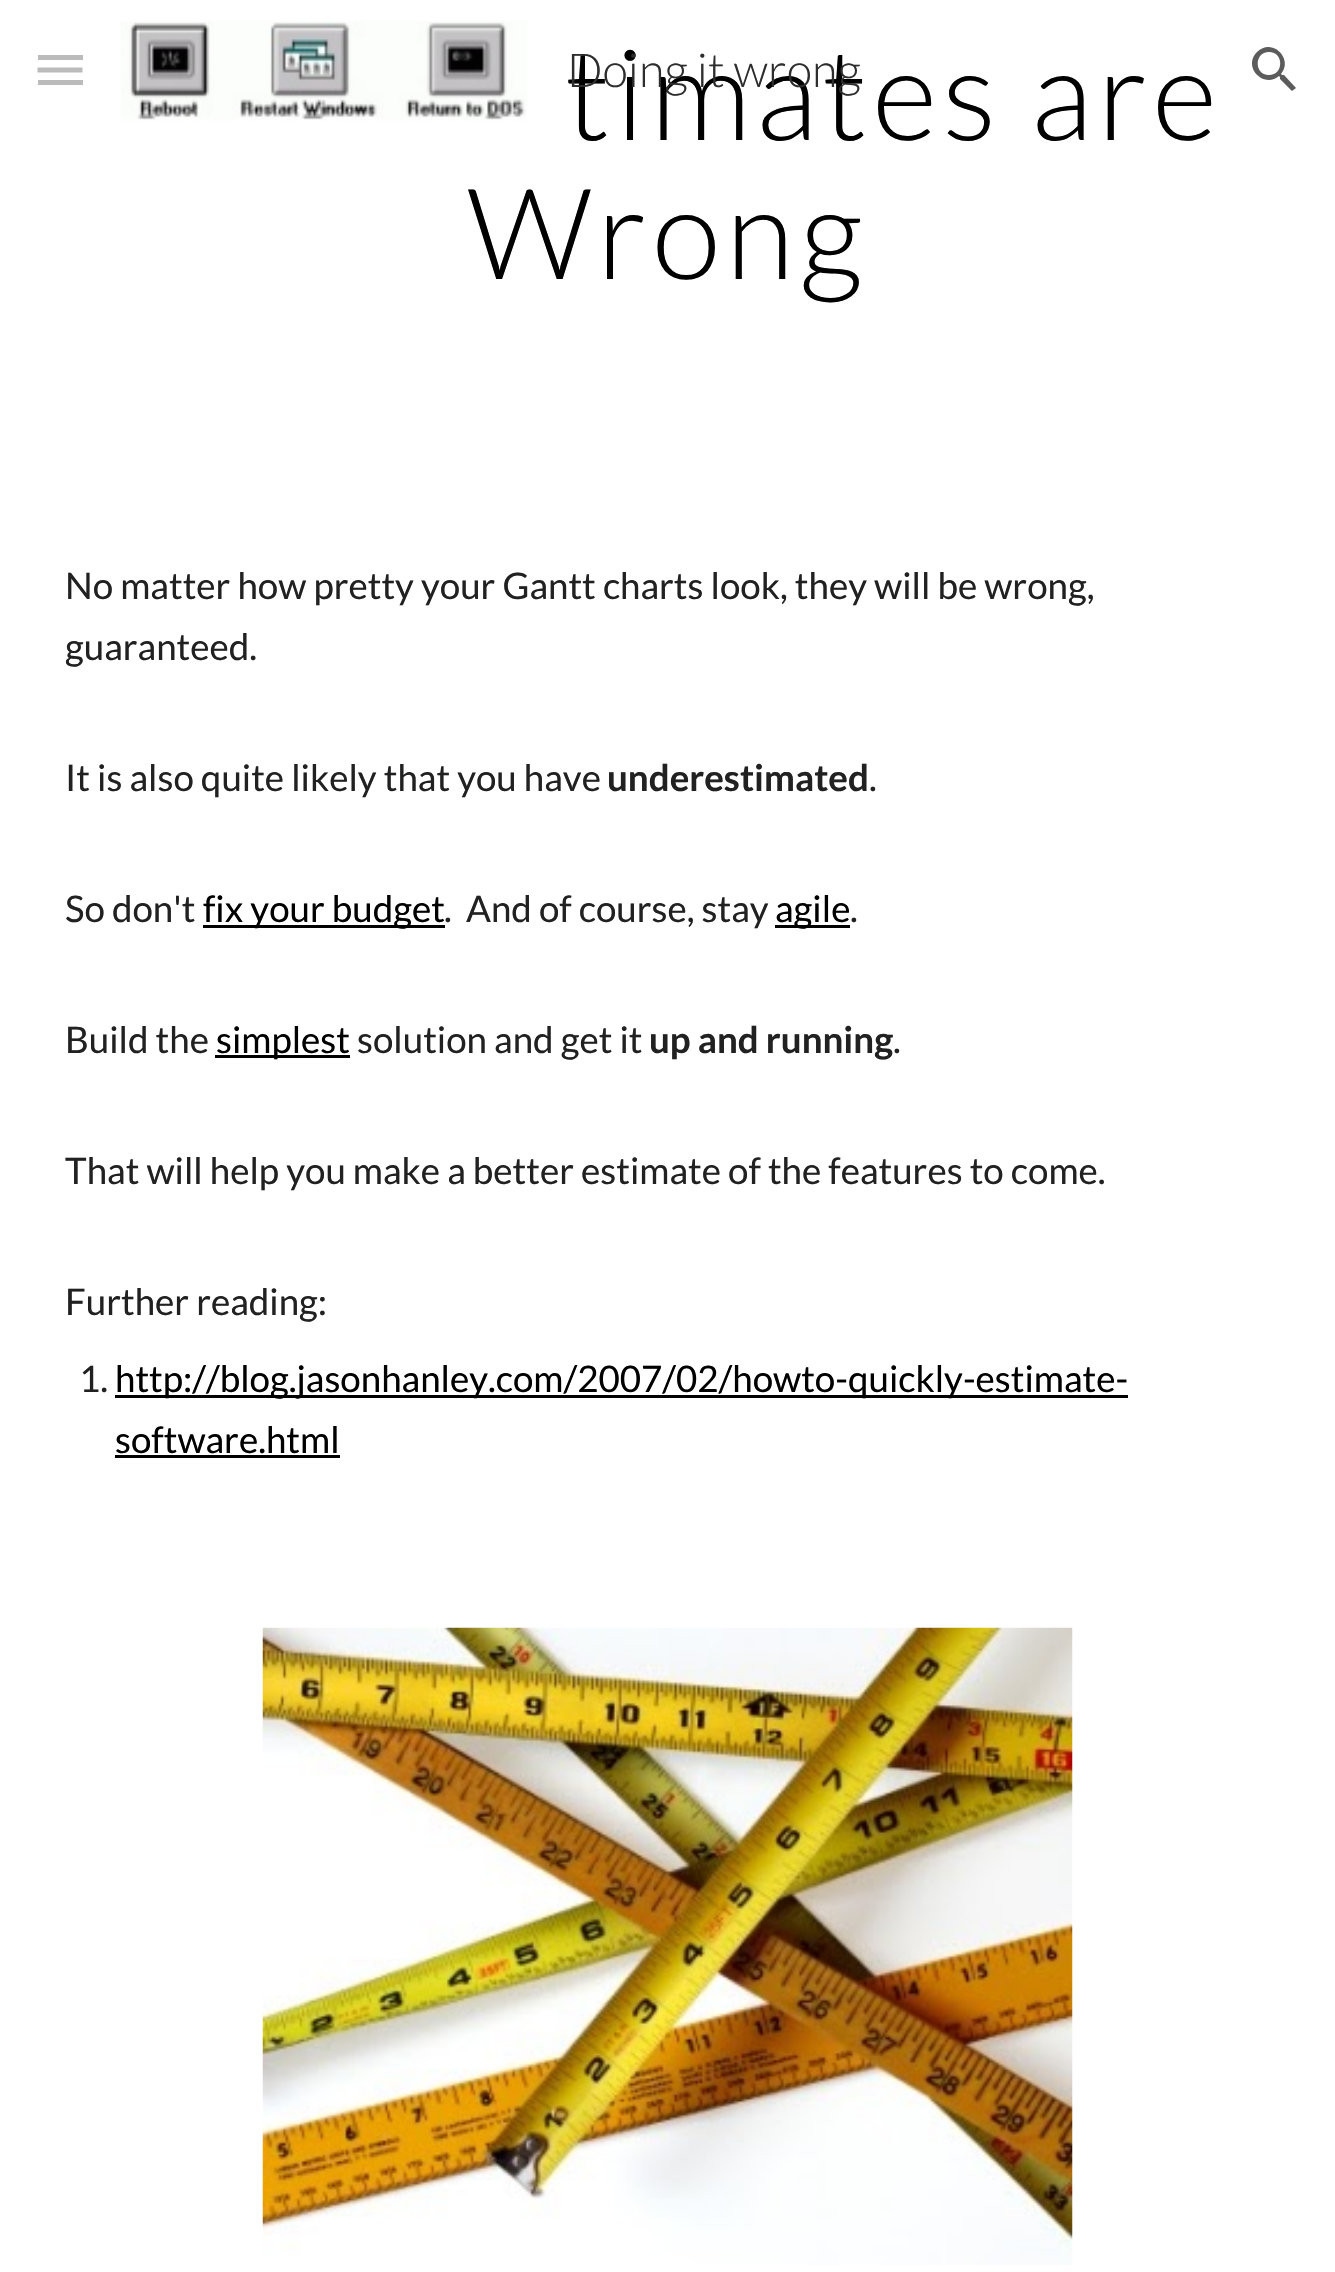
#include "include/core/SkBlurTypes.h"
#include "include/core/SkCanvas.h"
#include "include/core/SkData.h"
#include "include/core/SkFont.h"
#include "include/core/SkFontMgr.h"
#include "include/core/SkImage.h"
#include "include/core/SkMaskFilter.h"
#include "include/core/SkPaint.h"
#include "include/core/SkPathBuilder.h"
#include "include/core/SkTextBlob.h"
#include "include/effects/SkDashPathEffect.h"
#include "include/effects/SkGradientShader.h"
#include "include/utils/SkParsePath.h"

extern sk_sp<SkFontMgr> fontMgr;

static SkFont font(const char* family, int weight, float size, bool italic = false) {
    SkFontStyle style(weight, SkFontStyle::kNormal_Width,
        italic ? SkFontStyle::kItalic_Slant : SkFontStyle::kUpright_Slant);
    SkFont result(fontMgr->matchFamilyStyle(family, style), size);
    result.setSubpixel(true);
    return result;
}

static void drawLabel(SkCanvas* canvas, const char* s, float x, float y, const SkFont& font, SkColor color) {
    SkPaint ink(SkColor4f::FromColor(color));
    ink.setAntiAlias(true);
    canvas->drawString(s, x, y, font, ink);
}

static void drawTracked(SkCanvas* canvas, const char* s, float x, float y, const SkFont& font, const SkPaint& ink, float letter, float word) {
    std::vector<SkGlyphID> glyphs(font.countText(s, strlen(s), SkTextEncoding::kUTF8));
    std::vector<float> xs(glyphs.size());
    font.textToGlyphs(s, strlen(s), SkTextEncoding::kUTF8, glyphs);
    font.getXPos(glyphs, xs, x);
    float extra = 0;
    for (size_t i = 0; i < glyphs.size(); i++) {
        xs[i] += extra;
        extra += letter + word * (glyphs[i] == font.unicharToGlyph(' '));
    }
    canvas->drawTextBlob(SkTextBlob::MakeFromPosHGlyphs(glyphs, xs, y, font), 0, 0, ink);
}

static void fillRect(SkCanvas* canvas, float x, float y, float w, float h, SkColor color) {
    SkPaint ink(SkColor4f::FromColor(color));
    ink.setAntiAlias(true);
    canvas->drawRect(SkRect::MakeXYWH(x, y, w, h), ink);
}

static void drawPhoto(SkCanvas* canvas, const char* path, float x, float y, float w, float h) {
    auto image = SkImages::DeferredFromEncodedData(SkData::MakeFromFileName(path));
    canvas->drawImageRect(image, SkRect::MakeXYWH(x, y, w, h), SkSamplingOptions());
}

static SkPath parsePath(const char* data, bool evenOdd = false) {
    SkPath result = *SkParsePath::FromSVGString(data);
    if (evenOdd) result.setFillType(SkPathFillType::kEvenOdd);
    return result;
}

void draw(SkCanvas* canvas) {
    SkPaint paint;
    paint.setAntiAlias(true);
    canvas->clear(0xFFFFFFFF);
    SkFont font1 = font("Lato", 300, 126.5f);
    paint.setColor(0xFF000000);
    drawTracked(canvas, "timates are", 565, 140, font1, paint, 5, 0);
    drawTracked(canvas, "Wrong", 467, 279, font1, paint, 5, 0);
    SkFont font2 = font("Lato", 400, 36.7f);
    drawLabel(canvas, "No matter how pretty your Gantt charts look, they will be wrong,", 65, 599, font2, 0xFF212121);
    drawLabel(canvas, "guaranteed.", 65, 660, font2, 0xFF212121);
    drawLabel(canvas, "It is also quite likely that you have", 65, 791, font2, 0xFF212121);
    SkFont font3 = font("Lato", 700, 36.7f);
    drawLabel(canvas, "underestimated", 607, 791, font3, 0xFF212121);
    drawLabel(canvas, ".", 869, 791, font2, 0xFF212121);
    drawLabel(canvas, "So don't", 65, 922, font2, 0xFF212121);
    fillRect(canvas, 203, 925, 242, 3, 0xFF000000);
    drawLabel(canvas, "fix your budget", 203, 922, font2, 0xFF000000);
    drawLabel(canvas, ".  And of course, stay", 444, 922, font2, 0xFF212121);
    fillRect(canvas, 775, 925, 75, 3, 0xFF000000);
    drawLabel(canvas, "agile", 775, 922, font2, 0xFF000000);
    drawLabel(canvas, ".", 850, 922, font2, 0xFF212121);
    drawLabel(canvas, "Build the", 65, 1053, font2, 0xFF212121);
    fillRect(canvas, 215, 1055, 135, 3, 0xFF000000);
    drawLabel(canvas, "simplest", 216, 1053, font2, 0xFF000000);
    drawLabel(canvas, "solution and get it", 357, 1053, font2, 0xFF212121);
    drawLabel(canvas, "up and running", 649, 1053, font3, 0xFF212121);
    drawLabel(canvas, ".", 893, 1053, font2, 0xFF212121);
    drawLabel(canvas, "That will help you make a better estimate of the features to come.", 65, 1184, font2, 0xFF212121);
    drawLabel(canvas, "Further reading:", 65, 1315, font2, 0xFF212121);
    drawLabel(canvas, "1.", 79, 1392, font2, 0xFF212121);
    fillRect(canvas, 115, 1395, 1013, 3, 0xFF000000);
    drawLabel(canvas, "http://blog.jasonhanley.com/2007/02/howto-quickly-estimate-", 115, 1392, font2, 0xFF000000);
    drawLabel(canvas, "software.html", 115, 1453, font2, 0xFF000000);
    fillRect(canvas, 115, 1455, 225, 3, 0xFF000000);
    drawPhoto(canvas, "assets/img1.png", 262, 1627, 811, 638);
    fillRect(canvas, 38, 55, 45, 5, 0xFFBBBBBB);
    paint.setStroke(true);
    paint.setStrokeWidth(5);
    paint.setColor(0xFFBBBBBB);
    canvas->drawPath(parsePath("M37.5 70H82.5"), paint);
    fillRect(canvas, 38, 80, 45, 5, 0xFFBBBBBB);
    drawPhoto(canvas, "assets/img2.png", 117, 20, 413, 102);
    SkFont font4 = font("Lato", 300, 46.75f);
    drawLabel(canvas, "Doing it wrong", 567, 87, font4, 0xFF2D2D2D);
    paint.setStroke(false);
    paint.setColor(0xFF5C5C5C);
    canvas->drawPath(parsePath("M1284 75H1282L1281 74C1294 59 1272 37 1257 52C1242 67 1264 89 1279 76L1280 77V79L1292 91L1296 88ZM1269 75C1254 75 1254 52 1269 52C1284 52 1284 75 1269 75Z"), paint);
}
